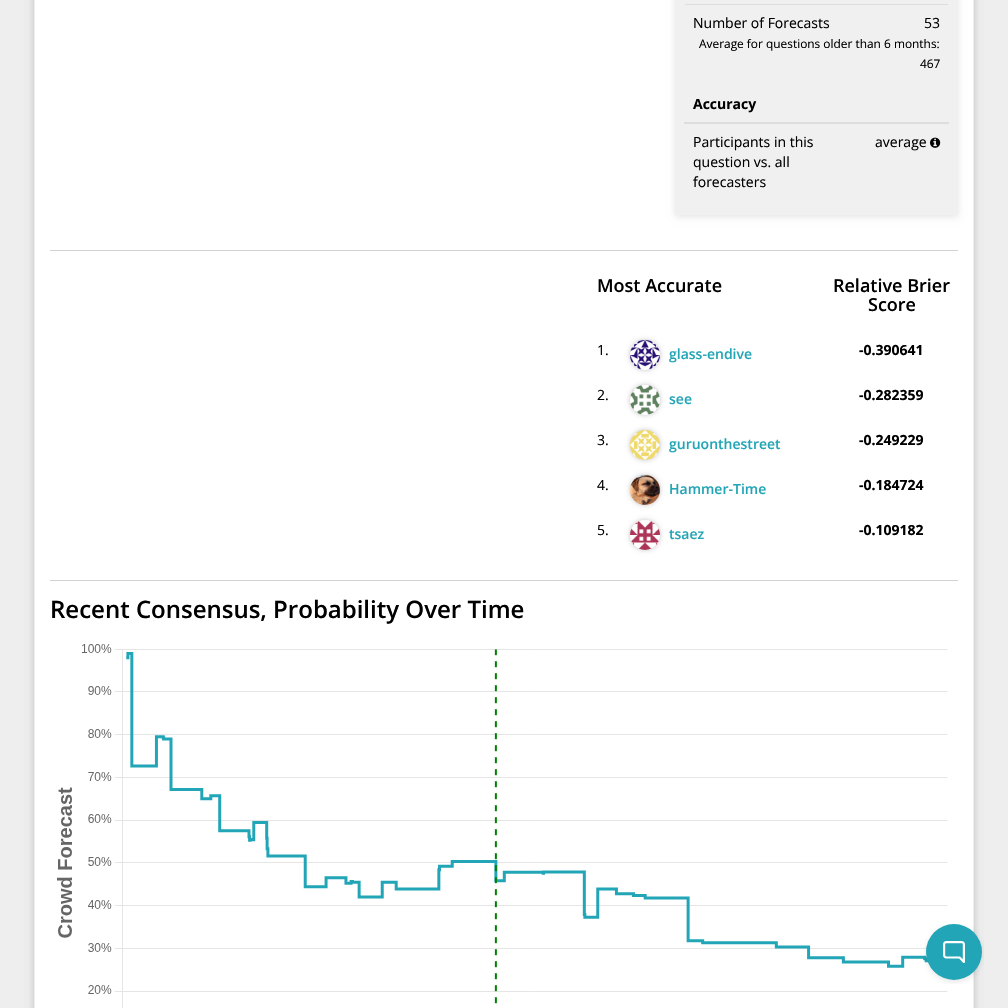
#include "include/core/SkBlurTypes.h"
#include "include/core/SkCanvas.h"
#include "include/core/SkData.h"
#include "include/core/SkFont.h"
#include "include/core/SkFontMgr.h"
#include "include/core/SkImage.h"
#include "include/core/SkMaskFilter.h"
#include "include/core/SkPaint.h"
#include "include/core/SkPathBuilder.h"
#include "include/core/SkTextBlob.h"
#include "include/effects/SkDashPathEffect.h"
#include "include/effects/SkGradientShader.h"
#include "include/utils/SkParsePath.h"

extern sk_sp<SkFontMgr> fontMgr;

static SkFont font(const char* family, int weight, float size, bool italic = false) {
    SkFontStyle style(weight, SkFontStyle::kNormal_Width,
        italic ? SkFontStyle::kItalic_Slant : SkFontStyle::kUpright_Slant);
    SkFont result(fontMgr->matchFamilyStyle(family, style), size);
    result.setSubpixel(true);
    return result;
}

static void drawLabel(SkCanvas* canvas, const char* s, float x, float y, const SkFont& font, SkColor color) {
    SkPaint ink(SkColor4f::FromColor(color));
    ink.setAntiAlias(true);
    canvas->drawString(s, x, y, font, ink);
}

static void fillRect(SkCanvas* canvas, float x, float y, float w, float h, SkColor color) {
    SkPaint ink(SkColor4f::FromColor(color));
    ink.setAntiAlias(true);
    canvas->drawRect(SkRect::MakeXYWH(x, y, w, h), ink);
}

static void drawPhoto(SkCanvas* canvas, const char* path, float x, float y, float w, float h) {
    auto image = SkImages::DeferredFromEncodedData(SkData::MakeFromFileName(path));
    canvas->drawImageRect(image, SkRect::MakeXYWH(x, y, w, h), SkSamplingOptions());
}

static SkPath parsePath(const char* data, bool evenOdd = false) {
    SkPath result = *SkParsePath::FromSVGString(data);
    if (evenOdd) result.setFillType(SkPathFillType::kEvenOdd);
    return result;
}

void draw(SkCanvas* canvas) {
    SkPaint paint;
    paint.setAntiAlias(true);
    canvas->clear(0xFFEEEEEE);
    paint.setColor(0x1A000000);
    paint.setMaskFilter(SkMaskFilter::MakeBlur(kNormal_SkBlurStyle, 3.5f));
    canvas->drawRect(SkRect::MakeXYWH(34, -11, 940, 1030), paint);
    paint.setMaskFilter(nullptr);
    fillRect(canvas, 35, 0, 938, 1008, 0xFFFFFFFF);
    canvas->save();
    canvas->clipPath(parsePath("M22 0H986V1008H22ZM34-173H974V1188H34Z", true), true);
    paint.setMaskFilter(SkMaskFilter::MakeBlur(kNormal_SkBlurStyle, 3.5f));
    canvas->drawRect(SkRect::MakeXYWH(34, -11, 940, 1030), paint);
    paint.setMaskFilter(nullptr);
    canvas->restore();
    paint.setStroke(true);
    paint.setStrokeWidth(1);
    paint.setColor(0xFFEDEDED);
    canvas->drawRect(SkRect::MakeXYWH(34.5f, -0.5f, 939, 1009), paint);
    paint.setStroke(false);
    paint.setColor(0x1A000000);
    paint.setMaskFilter(SkMaskFilter::MakeBlur(kNormal_SkBlurStyle, 3.5f));
    canvas->drawRect(SkRect::MakeXYWH(675, -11, 283, 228), paint);
    paint.setMaskFilter(nullptr);
    fillRect(canvas, 675, 0, 283, 215, 0xFFF0F0F0);
    SkFont font1 = font("Open Sans", 400, 14);
    drawLabel(canvas, "Number of Forecasts", 693, 28, font1, 0xFF000000);
    fillRect(canvas, 685, 4, 263, 1, 0xFFDDDDDD);
    drawLabel(canvas, "53", 924, 28, font1, 0xFF000000);
    SkFont font2 = font("Open Sans", 400, 11.9f);
    drawLabel(canvas, "Average for questions older than 6 months:", 699, 48, font2, 0xFF000000);
    drawLabel(canvas, "467", 920, 68, font2, 0xFF000000);
    fillRect(canvas, 684, 122, 265, 2, 0xFFDDDDDD);
    SkFont font3 = font("Open Sans", 700, 14);
    drawLabel(canvas, "Accuracy", 693, 109, font3, 0xFF000000);
    drawLabel(canvas, "Participants in this", 693, 147, font1, 0xFF000000);
    drawLabel(canvas, "question vs. all", 693, 167, font1, 0xFF000000);
    drawLabel(canvas, "forecasters", 693, 187, font1, 0xFF000000);
    drawLabel(canvas, "average", 875, 147, font1, 0xFF000000);
    drawPhoto(canvas, "assets/img1.png", 930, 137, 11, 11);
    fillRect(canvas, 50, 250, 908, 1, 0xFFD2D2D2);
    SkFont font4 = font("Open Sans", 600, 18);
    drawLabel(canvas, "Most Accurate", 597, 292, font4, 0xFF000000);
    drawLabel(canvas, "Relative Brier", 833, 292, font4, 0xFF000000);
    drawLabel(canvas, "Score", 868, 311, font4, 0xFF000000);
    drawLabel(canvas, "1.", 597, 355, font1, 0xFF000000);
    paint.setColor(0x3B000000);
    paint.setMaskFilter(SkMaskFilter::MakeBlur(kNormal_SkBlurStyle, 2.5f));
    canvas->drawRoundRect(SkRect::MakeXYWH(630, 340, 30, 30), 15, 15, paint);
    paint.setMaskFilter(nullptr);
    drawPhoto(canvas, "assets/img2.png", 630, 340, 30, 30);
    SkFont font5 = font("Open Sans", 600, 14);
    drawLabel(canvas, "glass-endive", 669, 359, font5, 0xFF22A5B6);
    drawLabel(canvas, "-0.390641", 859, 355, font3, 0xFF000000);
    drawLabel(canvas, "2.", 597, 400, font1, 0xFF000000);
    paint.setMaskFilter(SkMaskFilter::MakeBlur(kNormal_SkBlurStyle, 2.5f));
    canvas->drawRoundRect(SkRect::MakeXYWH(630, 385, 30, 30), 15, 15, paint);
    paint.setMaskFilter(nullptr);
    drawPhoto(canvas, "assets/img3.png", 630, 385, 30, 30);
    drawLabel(canvas, "see", 669, 404, font5, 0xFF22A5B6);
    drawLabel(canvas, "-0.282359", 859, 400, font3, 0xFF000000);
    drawLabel(canvas, "3.", 597, 445, font1, 0xFF000000);
    paint.setMaskFilter(SkMaskFilter::MakeBlur(kNormal_SkBlurStyle, 2.5f));
    canvas->drawRoundRect(SkRect::MakeXYWH(630, 430, 30, 30), 15, 15, paint);
    paint.setMaskFilter(nullptr);
    drawPhoto(canvas, "assets/img4.png", 630, 430, 30, 30);
    drawLabel(canvas, "guruonthestreet", 669, 449, font5, 0xFF22A5B6);
    drawLabel(canvas, "-0.249229", 859, 445, font3, 0xFF000000);
    drawLabel(canvas, "4.", 597, 490, font1, 0xFF000000);
    paint.setMaskFilter(SkMaskFilter::MakeBlur(kNormal_SkBlurStyle, 2.5f));
    canvas->drawRoundRect(SkRect::MakeXYWH(630, 475, 30, 30), 15, 15, paint);
    paint.setMaskFilter(nullptr);
    drawPhoto(canvas, "assets/img5.png", 630, 475, 30, 30);
    drawLabel(canvas, "Hammer-Time", 669, 494, font5, 0xFF22A5B6);
    drawLabel(canvas, "-0.184724", 859, 490, font3, 0xFF000000);
    drawLabel(canvas, "5.", 597, 535, font1, 0xFF000000);
    paint.setMaskFilter(SkMaskFilter::MakeBlur(kNormal_SkBlurStyle, 2.5f));
    canvas->drawRoundRect(SkRect::MakeXYWH(630, 520, 30, 30), 15, 15, paint);
    paint.setMaskFilter(nullptr);
    drawPhoto(canvas, "assets/img6.png", 630, 520, 30, 30);
    drawLabel(canvas, "tsaez", 669, 539, font5, 0xFF22A5B6);
    drawLabel(canvas, "-0.109182", 859, 535, font3, 0xFF000000);
    fillRect(canvas, 50, 580, 908, 1, 0xFFD2D2D2);
    SkFont font6 = font("Open Sans", 600, 24);
    drawLabel(canvas, "Recent Consensus, Probability Over Time", 50, 618, font6, 0xFF000000);
    drawPhoto(canvas, "assets/img7.png", 57, 644, 891, 364);
    drawPhoto(canvas, "assets/img8.png", 924, 924, 60, 60);
}
